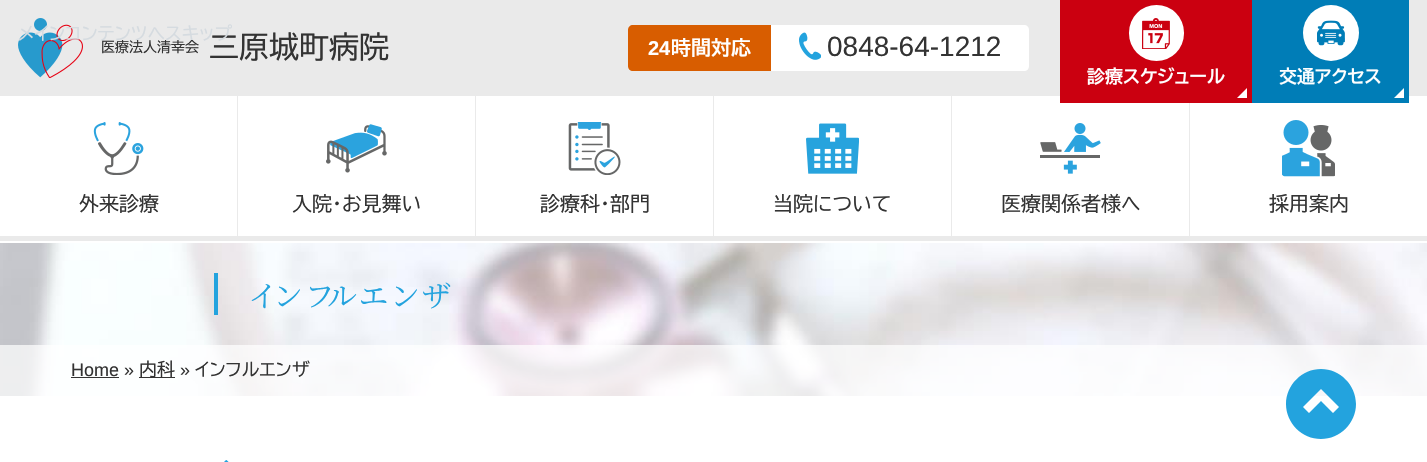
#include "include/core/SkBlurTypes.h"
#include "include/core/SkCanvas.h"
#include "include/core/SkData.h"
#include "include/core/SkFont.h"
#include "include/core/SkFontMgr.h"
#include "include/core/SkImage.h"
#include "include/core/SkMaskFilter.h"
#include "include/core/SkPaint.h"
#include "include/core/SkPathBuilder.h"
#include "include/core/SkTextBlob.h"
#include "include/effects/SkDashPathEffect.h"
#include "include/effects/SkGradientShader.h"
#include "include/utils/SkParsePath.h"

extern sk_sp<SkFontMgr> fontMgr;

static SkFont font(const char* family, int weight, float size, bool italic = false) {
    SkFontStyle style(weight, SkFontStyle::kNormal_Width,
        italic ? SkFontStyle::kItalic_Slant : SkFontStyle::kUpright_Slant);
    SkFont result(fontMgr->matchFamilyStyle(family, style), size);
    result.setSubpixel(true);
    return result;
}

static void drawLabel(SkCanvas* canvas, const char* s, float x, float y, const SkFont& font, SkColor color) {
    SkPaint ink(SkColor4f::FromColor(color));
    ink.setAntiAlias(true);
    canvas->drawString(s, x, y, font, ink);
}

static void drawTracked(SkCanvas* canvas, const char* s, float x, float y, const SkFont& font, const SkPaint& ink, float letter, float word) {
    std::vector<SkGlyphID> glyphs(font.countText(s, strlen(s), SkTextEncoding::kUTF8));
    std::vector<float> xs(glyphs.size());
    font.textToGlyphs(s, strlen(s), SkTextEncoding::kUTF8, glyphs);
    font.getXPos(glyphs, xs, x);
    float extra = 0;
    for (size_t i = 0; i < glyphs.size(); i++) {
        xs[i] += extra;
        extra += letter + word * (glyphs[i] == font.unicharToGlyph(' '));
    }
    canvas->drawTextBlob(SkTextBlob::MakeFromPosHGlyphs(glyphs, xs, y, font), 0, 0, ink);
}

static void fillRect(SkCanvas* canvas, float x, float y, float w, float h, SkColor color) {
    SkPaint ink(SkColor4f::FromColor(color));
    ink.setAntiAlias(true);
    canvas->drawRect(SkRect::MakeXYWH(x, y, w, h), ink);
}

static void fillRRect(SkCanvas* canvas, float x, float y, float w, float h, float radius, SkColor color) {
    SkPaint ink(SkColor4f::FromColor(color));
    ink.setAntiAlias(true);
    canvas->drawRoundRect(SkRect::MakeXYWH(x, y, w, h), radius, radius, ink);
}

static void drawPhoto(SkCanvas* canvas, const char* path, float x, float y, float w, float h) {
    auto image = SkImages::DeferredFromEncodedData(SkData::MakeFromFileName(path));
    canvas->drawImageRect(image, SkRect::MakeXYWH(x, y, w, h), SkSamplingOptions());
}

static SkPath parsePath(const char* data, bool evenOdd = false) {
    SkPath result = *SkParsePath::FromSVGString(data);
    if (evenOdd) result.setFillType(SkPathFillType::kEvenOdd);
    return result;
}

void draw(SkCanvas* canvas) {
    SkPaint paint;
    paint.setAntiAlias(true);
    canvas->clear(0xFFFFFFFF);
    fillRect(canvas, 0, 0, 1427, 96, 0xFFEAEAEA);
    drawPhoto(canvas, "assets/img1.png", 18, 18, 65, 60);
    SkFont font1 = font("BIZ UDPGothic", 400, 30);
    drawLabel(canvas, "三原城町病院", 209, 58, font1, 0xFF333333);
    SkFont font2 = font("BIZ UDPGothic", 400, 18);
    drawLabel(canvas, "メインコンテンツへスキップ", 18, 40, font2, 0xFFD5DBE0);
    SkFont font3 = font("BIZ UDPGothic", 400, 14);
    drawLabel(canvas, "医療法人清幸会", 101, 52, font3, 0xFF333333);
    paint.setColor(0xFFD85D00);
    canvas->drawPath(parsePath("M633 25H771V71H633C630 71 628 69 628 66V30C628 27 630 25 633 25Z"), paint);
    SkFont font4 = font("Liberation Sans", 700, 20);
    drawLabel(canvas, "24", 648, 55, font4, 0xFFFFFFFF);
    SkFont font5 = font("BIZ UDPGothic", 700, 20);
    drawLabel(canvas, "時間対応", 671, 55, font5, 0xFFFFFFFF);
    paint.setColor(0xFFFFFFFF);
    canvas->drawPath(parsePath("M771 25H1024C1027 25 1029 27 1029 30V66C1029 69 1027 71 1024 71H771Z"), paint);
    drawPhoto(canvas, "assets/img2.png", 799, 32, 22, 28);
    SkFont font6 = font("Liberation Sans", 400, 28);
    drawLabel(canvas, "0848-64-1212", 827, 56, font6, 0xFF333333);
    fillRect(canvas, 1189, 96, 1, 145, 0xFFEAEAEA);
    fillRect(canvas, 1060, 0, 192, 103, 0xFFCB0010);
    fillRRect(canvas, 1129, 5, 55, 56, 27.5f, 0xFFFFFFFF);
    drawPhoto(canvas, "assets/img3.png", 1142, 18, 28, 31);
    SkFont font7 = font("BIZ UDPGothic", 700, 18);
    drawLabel(canvas, "診療スケジュール", 1087, 83, font7, 0xFFFFFFFF);
    canvas->drawPath(parsePath("M1247 98H1237L1247 88Z"), paint);
    fillRect(canvas, 1252, 0, 157, 103, 0xFF007DB7);
    canvas->drawCircle(1331, 33, 28, paint);
    drawPhoto(canvas, "assets/img4.png", 1317, 20, 28, 26);
    drawLabel(canvas, "交通アクセス", 1279, 83, font7, 0xFFFFFFFF);
    canvas->drawPath(parsePath("M1404 98H1394L1404 88Z"), paint);
    fillRect(canvas, 237, 96, 1, 145, 0xFFEAEAEA);
    fillRect(canvas, 0, 236, 237, 5, 0xFFEAEAEA);
    drawPhoto(canvas, "assets/img5.png", 93, 122, 51, 53);
    SkFont font8 = font("BIZ UDPGothic", 400, 20);
    drawLabel(canvas, "外来診療", 79, 211, font8, 0xFF333333);
    fillRect(canvas, 475, 96, 1, 145, 0xFFEAEAEA);
    fillRect(canvas, 238, 236, 237, 5, 0xFFEAEAEA);
    drawPhoto(canvas, "assets/img6.png", 326, 124, 61, 49);
    drawLabel(canvas, "入院・お見舞い", 292, 211, font8, 0xFF333333);
    fillRect(canvas, 713, 96, 1, 145, 0xFFEAEAEA);
    fillRect(canvas, 476, 236, 237, 5, 0xFFEAEAEA);
    drawPhoto(canvas, "assets/img7.png", 568, 122, 53, 53);
    drawLabel(canvas, "診療科・部門", 540, 211, font8, 0xFF333333);
    fillRect(canvas, 951, 96, 1, 145, 0xFFEAEAEA);
    fillRect(canvas, 714, 236, 237, 5, 0xFFEAEAEA);
    drawPhoto(canvas, "assets/img8.png", 806, 123, 53, 51);
    drawLabel(canvas, "当院について", 773, 211, font8, 0xFF333333);
    fillRect(canvas, 952, 236, 237, 5, 0xFFEAEAEA);
    drawPhoto(canvas, "assets/img9.png", 1040, 123, 61, 51);
    drawLabel(canvas, "医療関係者様へ", 1001, 211, font8, 0xFF333333);
    fillRect(canvas, 1190, 236, 237, 5, 0xFFEAEAEA);
    drawPhoto(canvas, "assets/img10.png", 1282, 120, 53, 57);
    drawLabel(canvas, "採用案内", 1269, 211, font8, 0xFF333333);
    drawPhoto(canvas, "assets/img11.png", 0, 243, 1427, 153);
    fillRect(canvas, 214, 273, 4, 42, 0xFF23A3DE);
    SkFont font9 = font("Noto Serif JP", 400, 30);
    paint.setColor(0xFF23A3DE);
    drawTracked(canvas, "イ", 248, 307, font9, paint, 1.5f, 0);
    drawTracked(canvas, "ンフ", 273, 307, font9, paint, 1.5f, 0);
    drawTracked(canvas, "ルエンザ", 327, 307, font9, paint, 1.5f, 0);
    fillRect(canvas, 0, 345, 1427, 51, 0xB3FFFFFF);
    SkFont font10 = font("Liberation Sans", 400, 18);
    drawLabel(canvas, "Home »", 71, 376, font10, 0xFF333333);
    fillRect(canvas, 71, 377, 48, 1, 0xFF333333);
    fillRect(canvas, 139, 377, 36, 1, 0xFF333333);
    drawLabel(canvas, "内科", 139, 376, font2, 0xFF333333);
    drawLabel(canvas, "»", 180, 376, font10, 0xFF333333);
    drawLabel(canvas, "インフルエンザ", 195, 376, font2, 0xFF333333);
    canvas->drawPath(parsePath("M1321 369C1302 369 1286 385 1286 404C1286 423 1302 439 1321 439C1340 439 1356 423 1356 404C1356 385 1340 369 1321 369ZM1333 413L1321 401L1309 413L1303 407L1321 389L1339 407Z"), paint);
    drawPhoto(canvas, "assets/img12.png", 224, 460, 5, 2);
}
